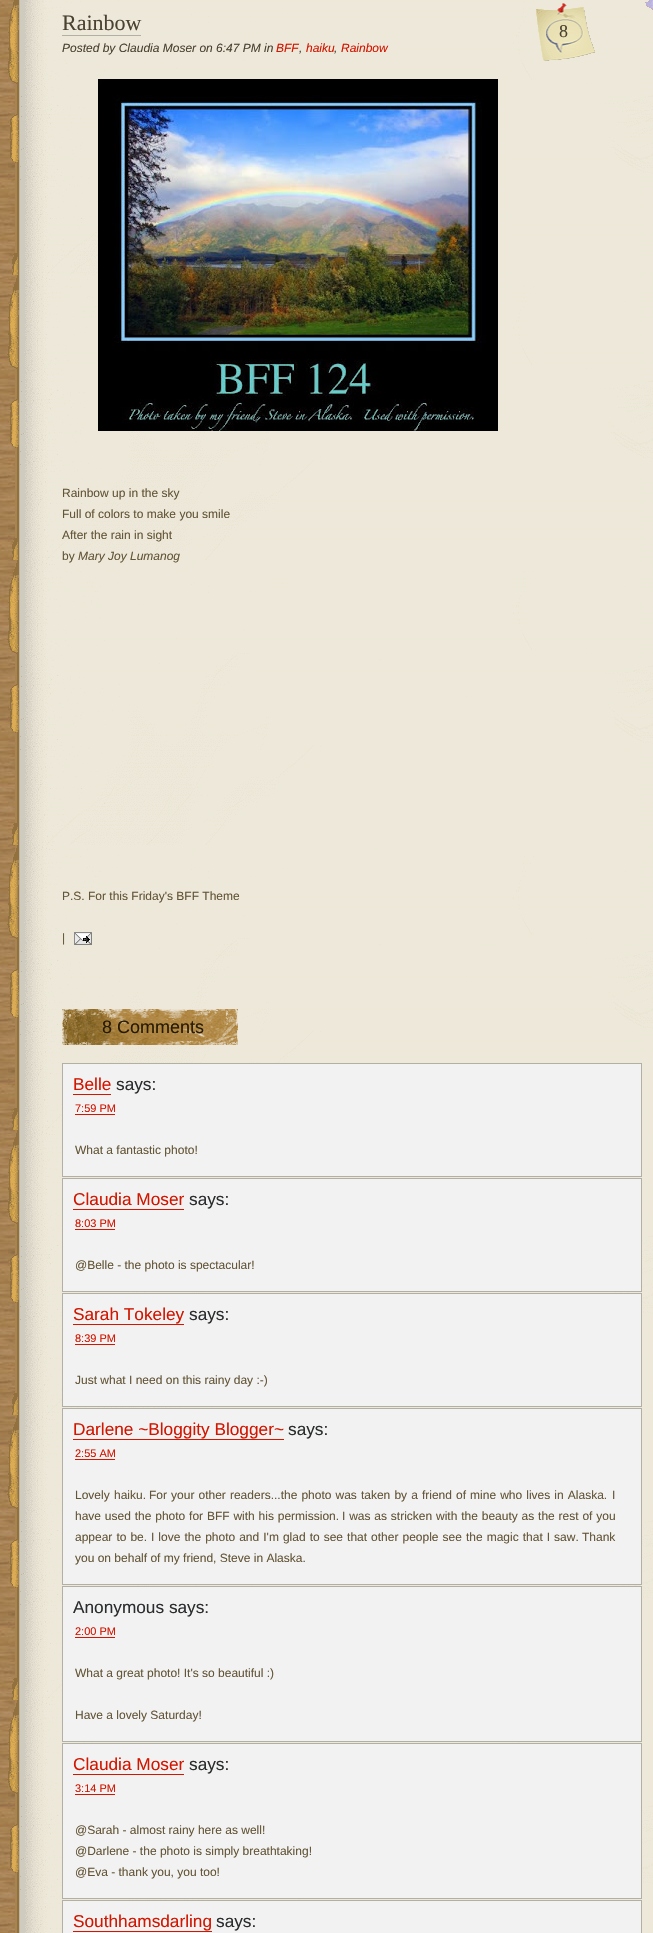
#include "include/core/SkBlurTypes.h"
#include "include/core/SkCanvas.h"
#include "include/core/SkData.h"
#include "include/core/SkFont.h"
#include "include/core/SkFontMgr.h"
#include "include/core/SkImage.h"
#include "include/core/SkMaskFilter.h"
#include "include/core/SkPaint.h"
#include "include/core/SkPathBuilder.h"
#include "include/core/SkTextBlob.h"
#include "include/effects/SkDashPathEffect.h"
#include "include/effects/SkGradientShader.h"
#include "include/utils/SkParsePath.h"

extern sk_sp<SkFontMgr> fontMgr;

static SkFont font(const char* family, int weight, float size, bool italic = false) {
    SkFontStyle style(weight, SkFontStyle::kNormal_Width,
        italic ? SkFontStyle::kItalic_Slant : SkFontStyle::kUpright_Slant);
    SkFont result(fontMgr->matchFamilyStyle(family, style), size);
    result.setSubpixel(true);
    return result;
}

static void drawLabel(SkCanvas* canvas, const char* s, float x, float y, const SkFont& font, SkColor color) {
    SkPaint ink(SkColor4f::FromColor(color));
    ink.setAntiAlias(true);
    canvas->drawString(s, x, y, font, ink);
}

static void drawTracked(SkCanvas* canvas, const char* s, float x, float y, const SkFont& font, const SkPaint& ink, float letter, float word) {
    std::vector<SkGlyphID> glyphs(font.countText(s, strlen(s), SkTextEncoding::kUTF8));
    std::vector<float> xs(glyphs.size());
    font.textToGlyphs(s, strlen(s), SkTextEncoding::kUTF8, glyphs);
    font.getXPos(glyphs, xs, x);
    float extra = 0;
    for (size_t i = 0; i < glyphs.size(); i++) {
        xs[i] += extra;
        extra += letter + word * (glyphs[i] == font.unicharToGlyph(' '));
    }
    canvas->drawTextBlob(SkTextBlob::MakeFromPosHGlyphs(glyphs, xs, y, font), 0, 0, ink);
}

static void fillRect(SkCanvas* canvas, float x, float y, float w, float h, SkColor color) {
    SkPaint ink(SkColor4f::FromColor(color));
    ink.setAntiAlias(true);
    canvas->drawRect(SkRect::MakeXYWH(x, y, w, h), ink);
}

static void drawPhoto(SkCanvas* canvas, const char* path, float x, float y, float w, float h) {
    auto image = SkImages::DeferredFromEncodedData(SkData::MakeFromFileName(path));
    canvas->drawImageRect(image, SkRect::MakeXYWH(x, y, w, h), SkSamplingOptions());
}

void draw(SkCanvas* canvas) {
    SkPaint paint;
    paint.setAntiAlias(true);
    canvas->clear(0xFFFFFFFF);
    drawPhoto(canvas, "assets/img1.png", 0, 0, 15, 1933);
    drawPhoto(canvas, "assets/img2.png", 7, 0, 646, 1933);
    drawPhoto(canvas, "assets/img3.png", 645, 0, 8, 10);
    SkFont font1 = font("Liberation Serif", 400, 22);
    drawLabel(canvas, "Rainbow", 62, 30, font1, 0xFF4A4131);
    fillRect(canvas, 62, 35, 79, 1, 0xFFB2B0A4);
    drawPhoto(canvas, "assets/img4.png", 536, 3, 59, 58);
    SkFont font2 = font("Liberation Serif", 400, 18);
    drawLabel(canvas, "8", 559, 37, font2, 0xFF4A4131);
    SkFont font3 = font("Liberation Sans", 400, 12, true);
    drawLabel(canvas, "Posted by Claudia Moser on 6:47 PM in", 62, 52, font3, 0xFF4A4131);
    drawLabel(canvas, "BFF", 276, 52, font3, 0xFFD21600);
    drawLabel(canvas, "haiku", 306, 52, font3, 0xFFD21600);
    drawLabel(canvas, "Rainbow", 341, 52, font3, 0xFFD21600);
    drawLabel(canvas, ",", 299, 52, font3, 0xFF4A4131);
    drawLabel(canvas, ",", 334, 52, font3, 0xFF4A4131);
    drawPhoto(canvas, "assets/img5.png", 98, 79, 400, 352);
    SkFont font4 = font("Liberation Sans", 400, 12);
    drawLabel(canvas, "Rainbow up in the sky", 62, 497, font4, 0xFF635537);
    drawLabel(canvas, "Full of colors to make you smile", 62, 518, font4, 0xFF635537);
    drawLabel(canvas, "After the rain in sight", 62, 539, font4, 0xFF635537);
    drawLabel(canvas, "by", 62, 560, font4, 0xFF635537);
    drawLabel(canvas, "Mary Joy Lumanog", 78, 560, font3, 0xFF635537);
    drawLabel(canvas, "P.S. For this Friday's BFF Theme", 62, 900, font4, 0xFF635537);
    drawLabel(canvas, "|", 62, 942, font4, 0xFF635537);
    drawPhoto(canvas, "assets/img6.png", 74, 932, 18, 13);
    drawPhoto(canvas, "assets/img7.png", 62, 1009, 176, 36);
    SkFont font5 = font("Liberation Sans", 400, 18);
    drawLabel(canvas, "8 Comments", 102, 1033, font5, 0xFF271B03);
    paint.setColor(0xFFF2F2F2);
    canvas->drawRect(SkRect::MakeXYWH(62.5f, 1063.5f, 579, 113), paint);
    paint.setStroke(true);
    paint.setStrokeWidth(1);
    paint.setColor(0xFFB2B0A4);
    canvas->drawRect(SkRect::MakeXYWH(62.5f, 1063.5f, 579, 113), paint);
    SkFont font6 = font("Liberation Sans", 400, 17.25f);
    drawLabel(canvas, "Belle", 73, 1090, font6, 0xFFD21600);
    fillRect(canvas, 73, 1094, 38, 1, 0xFFD21600);
    drawLabel(canvas, "says:", 116, 1090, font6, 0xFF2B2D2F);
    SkFont font7 = font("Liberation Sans", 400, 11);
    drawLabel(canvas, "7:59 PM", 75, 1112, font7, 0xFFD21600);
    fillRect(canvas, 75, 1114, 40, 1, 0xFFD21600);
    drawLabel(canvas, "What a fantastic photo!", 75, 1154, font4, 0xFF635537);
    paint.setStroke(false);
    paint.setColor(0xFFF2F2F2);
    canvas->drawRect(SkRect::MakeXYWH(62.5f, 1178.5f, 579, 113), paint);
    paint.setStroke(true);
    paint.setColor(0xFFB2B0A4);
    canvas->drawRect(SkRect::MakeXYWH(62.5f, 1178.5f, 579, 113), paint);
    drawLabel(canvas, "Claudia Moser", 73, 1205, font6, 0xFFD21600);
    fillRect(canvas, 73, 1209, 111, 1, 0xFFD21600);
    drawLabel(canvas, "says:", 189, 1205, font6, 0xFF2B2D2F);
    drawLabel(canvas, "8:03 PM", 75, 1227, font7, 0xFFD21600);
    fillRect(canvas, 75, 1229, 40, 1, 0xFFD21600);
    drawLabel(canvas, "@Belle - the photo is spectacular!", 75, 1269, font4, 0xFF635537);
    paint.setStroke(false);
    paint.setColor(0xFFF2F2F2);
    canvas->drawRect(SkRect::MakeXYWH(62.5f, 1293.5f, 579, 113), paint);
    paint.setStroke(true);
    paint.setColor(0xFFB2B0A4);
    canvas->drawRect(SkRect::MakeXYWH(62.5f, 1293.5f, 579, 113), paint);
    drawLabel(canvas, "Sarah Tokeley", 73, 1320, font6, 0xFFD21600);
    fillRect(canvas, 73, 1324, 111, 1, 0xFFD21600);
    drawLabel(canvas, "says:", 189, 1320, font6, 0xFF2B2D2F);
    drawLabel(canvas, "8:39 PM", 75, 1342, font7, 0xFFD21600);
    fillRect(canvas, 75, 1344, 40, 1, 0xFFD21600);
    drawLabel(canvas, "Just what I need on this rainy day :-)", 75, 1384, font4, 0xFF635537);
    paint.setStroke(false);
    paint.setColor(0xFFF2F2F2);
    canvas->drawRect(SkRect::MakeXYWH(62.5f, 1408.5f, 579, 176), paint);
    paint.setStroke(true);
    paint.setColor(0xFFB2B0A4);
    canvas->drawRect(SkRect::MakeXYWH(62.5f, 1408.5f, 579, 176), paint);
    drawLabel(canvas, "Darlene ~Bloggity Blogger~", 73, 1435, font6, 0xFFD21600);
    fillRect(canvas, 73, 1439, 211, 1, 0xFFD21600);
    drawLabel(canvas, "says:", 288, 1435, font6, 0xFF2B2D2F);
    drawLabel(canvas, "2:55 AM", 75, 1457, font7, 0xFFD21600);
    fillRect(canvas, 75, 1459, 40, 1, 0xFFD21600);
    paint.setStroke(false);
    paint.setColor(0xFF635537);
    drawTracked(canvas, "Lovely haiku.", 75, 1499, font4, paint, 0, 1);
    drawTracked(canvas, "For your other readers...the photo was taken by a friend of mine who lives in Alaska.", 149, 1499, font4, paint, 0, 0.75f);
    drawLabel(canvas, "I", 612, 1499, font4, 0xFF635537);
    drawTracked(canvas, "have used the photo for BFF with his permission.", 75, 1520, font4, paint, 0, 0.5f);
    drawTracked(canvas, "I was as stricken with the beauty as the rest of you", 342, 1520, font4, paint, 0, 0.5f);
    drawTracked(canvas, "appear to be.", 75, 1541, font4, paint, 0, 0.7f);
    drawTracked(canvas, "I love the photo and I'm glad to see that other people see the magic that I saw.", 151, 1541, font4, paint, 0, 0.7f);
    drawLabel(canvas, "Thank", 582, 1541, font4, 0xFF635537);
    drawLabel(canvas, "you on behalf of my friend, Steve in Alaska.", 75, 1562, font4, 0xFF635537);
    paint.setColor(0xFFF2F2F2);
    canvas->drawRect(SkRect::MakeXYWH(62.5f, 1586.5f, 579, 155), paint);
    paint.setStroke(true);
    paint.setColor(0xFFB2B0A4);
    canvas->drawRect(SkRect::MakeXYWH(62.5f, 1586.5f, 579, 155), paint);
    drawLabel(canvas, "Anonymous says:", 73, 1613, font6, 0xFF2B2D2F);
    drawLabel(canvas, "2:00 PM", 75, 1635, font7, 0xFFD21600);
    fillRect(canvas, 75, 1637, 40, 1, 0xFFD21600);
    drawLabel(canvas, "What a great photo! It's so beautiful :)", 75, 1677, font4, 0xFF635537);
    drawLabel(canvas, "Have a lovely Saturday!", 75, 1719, font4, 0xFF635537);
    paint.setStroke(false);
    paint.setColor(0xFFF2F2F2);
    canvas->drawRect(SkRect::MakeXYWH(62.5f, 1743.5f, 579, 155), paint);
    paint.setStroke(true);
    paint.setColor(0xFFB2B0A4);
    canvas->drawRect(SkRect::MakeXYWH(62.5f, 1743.5f, 579, 155), paint);
    drawLabel(canvas, "Claudia Moser", 73, 1770, font6, 0xFFD21600);
    fillRect(canvas, 73, 1774, 111, 1, 0xFFD21600);
    drawLabel(canvas, "says:", 189, 1770, font6, 0xFF2B2D2F);
    drawLabel(canvas, "3:14 PM", 75, 1792, font7, 0xFFD21600);
    fillRect(canvas, 75, 1794, 40, 1, 0xFFD21600);
    drawLabel(canvas, "@Sarah - almost rainy here as well!", 75, 1834, font4, 0xFF635537);
    drawLabel(canvas, "@Darlene - the photo is simply breathtaking!", 75, 1855, font4, 0xFF635537);
    drawLabel(canvas, "@Eva - thank you, you too!", 75, 1876, font4, 0xFF635537);
    paint.setStroke(false);
    paint.setColor(0xFFF2F2F2);
    canvas->drawRect(SkRect::MakeXYWH(62.5f, 1900.5f, 579, 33), paint);
    paint.setStroke(true);
    paint.setColor(0xFFB2B0A4);
    canvas->drawRect(SkRect::MakeXYWH(62.5f, 1900.5f, 579, 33), paint);
    drawLabel(canvas, "Southhamsdarling", 73, 1927, font6, 0xFFD21600);
    fillRect(canvas, 73, 1931, 139, 1, 0xFFD21600);
    drawLabel(canvas, "says:", 216, 1927, font6, 0xFF2B2D2F);
}
